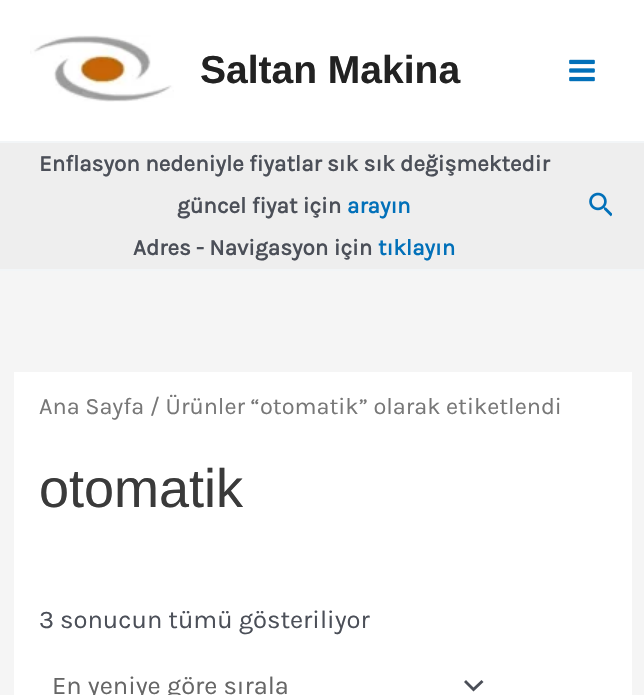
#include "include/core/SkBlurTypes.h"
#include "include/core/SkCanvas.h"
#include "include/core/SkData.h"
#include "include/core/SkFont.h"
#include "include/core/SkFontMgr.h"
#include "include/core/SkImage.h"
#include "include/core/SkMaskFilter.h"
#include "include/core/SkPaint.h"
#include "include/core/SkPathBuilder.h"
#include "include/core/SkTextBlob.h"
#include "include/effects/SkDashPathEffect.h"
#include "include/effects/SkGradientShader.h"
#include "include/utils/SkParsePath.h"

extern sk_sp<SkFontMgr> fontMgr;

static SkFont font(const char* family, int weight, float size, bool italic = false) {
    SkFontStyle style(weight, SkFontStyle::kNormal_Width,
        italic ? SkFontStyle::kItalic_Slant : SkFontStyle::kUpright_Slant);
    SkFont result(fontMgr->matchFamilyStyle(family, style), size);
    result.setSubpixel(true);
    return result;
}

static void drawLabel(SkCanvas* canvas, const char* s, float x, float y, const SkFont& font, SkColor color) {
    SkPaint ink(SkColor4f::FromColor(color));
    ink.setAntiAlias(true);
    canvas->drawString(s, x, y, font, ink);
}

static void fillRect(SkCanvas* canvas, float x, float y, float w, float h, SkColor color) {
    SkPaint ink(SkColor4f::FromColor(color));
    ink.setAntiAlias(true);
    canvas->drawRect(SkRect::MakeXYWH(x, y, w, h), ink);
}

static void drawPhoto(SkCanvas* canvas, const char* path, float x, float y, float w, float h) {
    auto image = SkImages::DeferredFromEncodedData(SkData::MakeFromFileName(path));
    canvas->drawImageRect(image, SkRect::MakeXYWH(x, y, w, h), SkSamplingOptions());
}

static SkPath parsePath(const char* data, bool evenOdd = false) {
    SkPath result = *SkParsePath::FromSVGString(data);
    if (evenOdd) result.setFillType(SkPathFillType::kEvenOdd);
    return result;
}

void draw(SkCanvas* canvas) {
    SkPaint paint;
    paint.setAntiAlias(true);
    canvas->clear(0xFFF5F5F5);
    fillRect(canvas, 0, 0, 644, 141, 0xFFFFFFFF);
    fillRect(canvas, 0, 141, 644, 2, 0xFFF2F5F7);
    drawPhoto(canvas, "assets/img1.png", 30, 35, 144, 67);
    SkFont font1 = font("Liberation Sans", 700, 39);
    drawLabel(canvas, "Saltan Makina", 200, 83, font1, 0xFF222222);
    drawPhoto(canvas, "assets/img2.png", 569, 59, 26, 23);
    fillRect(canvas, 0, 143, 644, 126, 0xFFEEEEEE);
    fillRect(canvas, 0, 269, 644, 2, 0xFFF2F5F7);
    SkFont font2 = font("Karla", 700, 22.5f);
    drawLabel(canvas, "Enflasyon nedeniyle fiyatlar sık sık değişmektedir", 39, 171, font2, 0xFF4B4F58);
    drawLabel(canvas, "güncel fiyat için", 177, 213, font2, 0xFF4B4F58);
    drawLabel(canvas, "arayın", 347, 213, font2, 0xFF0170B9);
    drawLabel(canvas, "Adres - Navigasyon için", 133, 255, font2, 0xFF4B4F58);
    drawLabel(canvas, "tıklayın", 378, 255, font2, 0xFF0170B9);
    drawPhoto(canvas, "assets/img3.png", 589, 192, 23, 25);
    fillRect(canvas, 14, 372, 618, 323, 0xFFFFFFFF);
    SkFont font3 = font("Karla", 400, 23.5f);
    drawLabel(canvas, "Ana Sayfa / Ürünler “otomatik” olarak etiketlendi", 39, 414, font3, 0xFF777777);
    SkFont font4 = font("Liberation Sans", 400, 54);
    drawLabel(canvas, "otomatik", 39, 507, font4, 0xFF3A3A3A);
    SkFont font5 = font("Karla", 400, 25.5f);
    drawLabel(canvas, "3 sonucun tümü gösteriliyor", 39, 628, font5, 0xFF4B4F58);
    paint.setColor(0xFF4B4F58);
    canvas->drawPath(parsePath("M464 682L473.5 691.5L483.5 682L481.5 680L473.5 687.5L466 680Z"), paint);
    drawLabel(canvas, "En yeniye göre sırala", 52, 694, font5, 0xFF666666);
}
